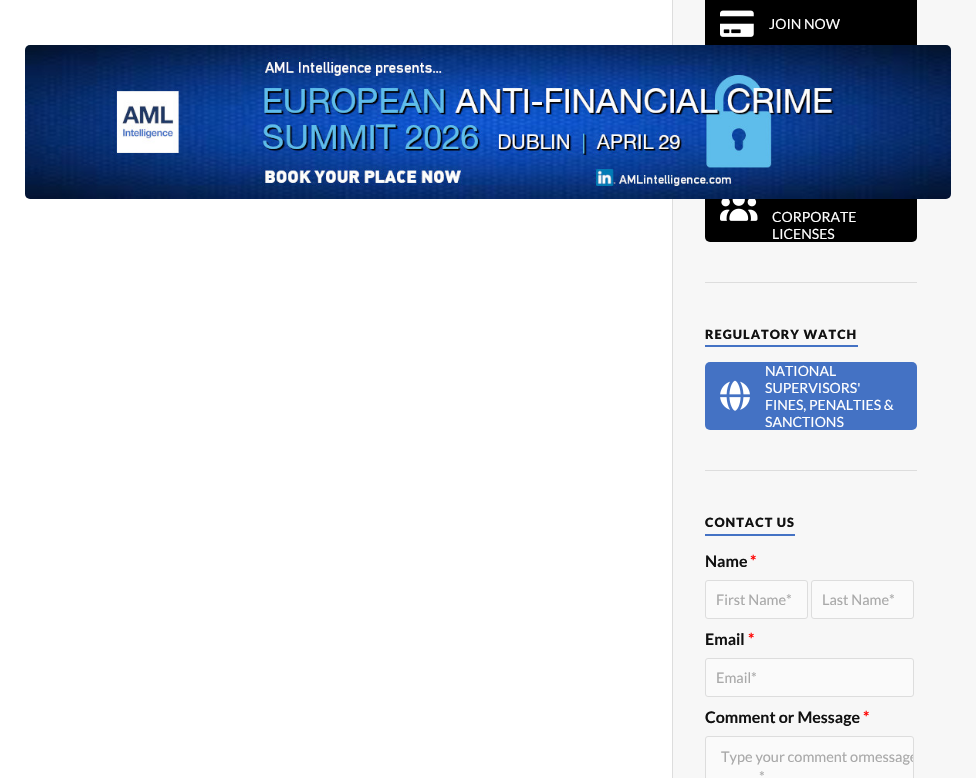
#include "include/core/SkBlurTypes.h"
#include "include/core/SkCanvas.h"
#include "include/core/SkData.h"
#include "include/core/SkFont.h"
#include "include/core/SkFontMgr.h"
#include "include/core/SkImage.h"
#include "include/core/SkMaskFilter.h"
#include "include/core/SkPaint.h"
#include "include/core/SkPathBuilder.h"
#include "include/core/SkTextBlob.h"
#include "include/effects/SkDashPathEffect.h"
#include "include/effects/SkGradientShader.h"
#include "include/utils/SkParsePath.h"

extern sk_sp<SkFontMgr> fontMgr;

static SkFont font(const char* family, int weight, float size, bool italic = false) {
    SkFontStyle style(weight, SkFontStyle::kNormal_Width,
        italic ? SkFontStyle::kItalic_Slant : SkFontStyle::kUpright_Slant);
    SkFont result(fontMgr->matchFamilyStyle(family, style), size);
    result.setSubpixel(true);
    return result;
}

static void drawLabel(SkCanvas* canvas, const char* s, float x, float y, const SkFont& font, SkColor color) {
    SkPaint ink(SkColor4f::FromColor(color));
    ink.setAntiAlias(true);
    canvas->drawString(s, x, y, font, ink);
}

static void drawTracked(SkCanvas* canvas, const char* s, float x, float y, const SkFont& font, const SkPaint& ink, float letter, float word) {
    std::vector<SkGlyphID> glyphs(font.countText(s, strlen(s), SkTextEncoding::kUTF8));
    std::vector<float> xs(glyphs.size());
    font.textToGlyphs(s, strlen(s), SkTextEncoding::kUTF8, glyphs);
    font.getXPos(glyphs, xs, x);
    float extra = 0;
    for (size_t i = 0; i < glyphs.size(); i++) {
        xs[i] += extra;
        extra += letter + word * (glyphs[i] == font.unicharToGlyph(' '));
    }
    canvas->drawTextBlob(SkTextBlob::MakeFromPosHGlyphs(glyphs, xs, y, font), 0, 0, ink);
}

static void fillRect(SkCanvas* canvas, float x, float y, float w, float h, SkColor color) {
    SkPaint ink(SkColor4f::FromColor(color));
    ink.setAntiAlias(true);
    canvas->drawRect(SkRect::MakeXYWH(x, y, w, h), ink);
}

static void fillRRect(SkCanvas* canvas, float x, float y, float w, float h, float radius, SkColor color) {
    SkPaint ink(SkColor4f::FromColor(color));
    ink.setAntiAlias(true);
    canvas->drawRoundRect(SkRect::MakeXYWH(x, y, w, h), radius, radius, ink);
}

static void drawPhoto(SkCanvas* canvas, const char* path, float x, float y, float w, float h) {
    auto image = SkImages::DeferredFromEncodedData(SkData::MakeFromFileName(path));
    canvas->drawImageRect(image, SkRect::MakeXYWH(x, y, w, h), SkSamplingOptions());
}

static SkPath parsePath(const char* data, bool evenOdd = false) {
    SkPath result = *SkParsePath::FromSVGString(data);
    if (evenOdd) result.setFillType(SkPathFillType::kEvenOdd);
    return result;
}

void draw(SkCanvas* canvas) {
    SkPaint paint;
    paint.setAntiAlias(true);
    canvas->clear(0xFFF7F7F7);
    fillRect(canvas, 0, 0, 672, 778, 0xFFFFFFFF);
    fillRect(canvas, 672, 0, 1, 778, 0xFFDDDDDD);
    fillRect(canvas, 705, 0, 212, 45, 0xFF000000);
    drawPhoto(canvas, "assets/img1.png", 720, 10, 34, 27);
    SkFont font1 = font("Lato", 400, 14);
    drawLabel(canvas, "JOIN NOW", 769, 29, font1, 0xFFFFFFFF);
    fillRRect(canvas, 705, 174, 212, 68, 5, 0xFF000000);
    drawPhoto(canvas, "assets/img2.png", 720, 199, 38, 22);
    drawLabel(canvas, "CORPORATE", 772, 222, font1, 0xFFFFFFFF);
    drawLabel(canvas, "LICENSES", 772, 239, font1, 0xFFFFFFFF);
    fillRect(canvas, 705, 282, 212, 1, 0xFFDDDDDD);
    fillRect(canvas, 705, 345, 153, 2, 0xFF4472C4);
    SkFont font2 = font("Lato", 900, 12.75f);
    paint.setColor(0xFF111111);
    drawTracked(canvas, "REGULATORY WATCH", 705, 339, font2, paint, 1, 0);
    fillRRect(canvas, 705, 362, 212, 68, 5, 0xFF4472C4);
    drawPhoto(canvas, "assets/img3.png", 720, 380, 30, 31);
    drawLabel(canvas, "NATIONAL", 765, 376, font1, 0xFFFFFFFF);
    drawLabel(canvas, "SUPERVISORS'", 765, 393, font1, 0xFFFFFFFF);
    drawLabel(canvas, "FINES, PENALTIES &", 765, 410, font1, 0xFFFFFFFF);
    drawLabel(canvas, "SANCTIONS", 765, 427, font1, 0xFFFFFFFF);
    fillRect(canvas, 705, 470, 212, 1, 0xFFDDDDDD);
    fillRect(canvas, 705, 534, 90, 2, 0xFF4472C4);
    drawTracked(canvas, "CONTACT US", 705, 527, font2, paint, 1, 0);
    SkFont font3 = font("Lato", 700, 16);
    drawLabel(canvas, "Name", 705, 567, font3, 0xFF111111);
    drawLabel(canvas, "*", 750, 567, font3, 0xFFFF0201);
    paint.setColor(0xFFFAFAFA);
    canvas->drawRoundRect(SkRect::MakeXYWH(705.5f, 580.5f, 102, 38), 2.5f, 2.5f, paint);
    paint.setStroke(true);
    paint.setStrokeWidth(1);
    paint.setColor(0xFFDDDDDD);
    canvas->drawRoundRect(SkRect::MakeXYWH(705.5f, 580.5f, 102, 38), 2.5f, 2.5f, paint);
    SkFont font4 = font("Lato", 400, 14.5f);
    drawLabel(canvas, "First Name*", 716, 605, font4, 0xFFA9A9A9);
    paint.setStroke(false);
    paint.setColor(0xFFFAFAFA);
    canvas->drawRoundRect(SkRect::MakeXYWH(811.5f, 580.5f, 102, 38), 2.5f, 2.5f, paint);
    paint.setStroke(true);
    paint.setColor(0xFFDDDDDD);
    canvas->drawRoundRect(SkRect::MakeXYWH(811.5f, 580.5f, 102, 38), 2.5f, 2.5f, paint);
    drawLabel(canvas, "Last Name*", 822, 605, font4, 0xFFA9A9A9);
    drawLabel(canvas, "Email", 705, 645, font3, 0xFF111111);
    drawLabel(canvas, "*", 748, 645, font3, 0xFFFF0201);
    paint.setStroke(false);
    paint.setColor(0xFFFAFAFA);
    canvas->drawRoundRect(SkRect::MakeXYWH(705.5f, 658.5f, 208, 38), 2.5f, 2.5f, paint);
    paint.setStroke(true);
    paint.setColor(0xFFDDDDDD);
    canvas->drawRoundRect(SkRect::MakeXYWH(705.5f, 658.5f, 208, 38), 2.5f, 2.5f, paint);
    drawLabel(canvas, "Email*", 716, 683, font4, 0xFFA9A9A9);
    drawLabel(canvas, "Comment or Message", 705, 723, font3, 0xFF111111);
    drawLabel(canvas, "*", 863, 723, font3, 0xFFFF0201);
    paint.setStroke(false);
    paint.setColor(0xFFFAFAFA);
    canvas->drawRoundRect(SkRect::MakeXYWH(705.5f, 736.5f, 208, 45), 2.5f, 2.5f, paint);
    paint.setStroke(true);
    paint.setColor(0xFFDDDDDD);
    canvas->drawRoundRect(SkRect::MakeXYWH(705.5f, 736.5f, 208, 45), 2.5f, 2.5f, paint);
    drawLabel(canvas, "Type your comment or", 721, 762, font4, 0xFFA9A9A9);
    canvas->save();
    canvas->clipPath(parsePath("M708 737H911C912 737 913 738 913 739V913C913 914 912 915 911 915H708C707 915 706 914 706 913V739C706 738 707 737 708 737Z"), true);
    drawLabel(canvas, "message", 863, 762, font4, 0xFFA9A9A9);
    canvas->restore();
    drawLabel(canvas, "*", 759, 782, font4, 0xFFA9A9A9);
    drawPhoto(canvas, "assets/img4.png", 25, 45, 926, 154);
}
